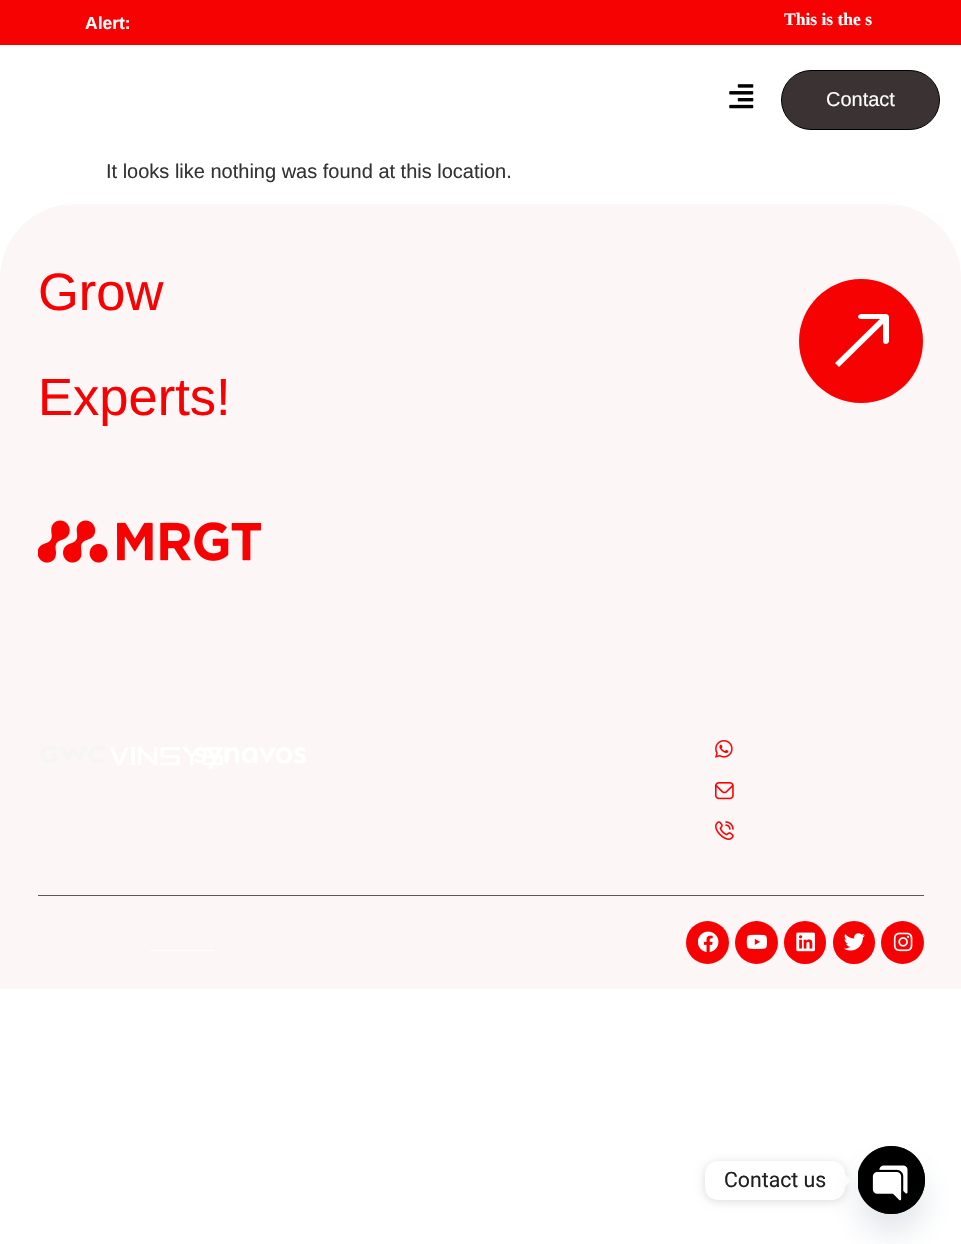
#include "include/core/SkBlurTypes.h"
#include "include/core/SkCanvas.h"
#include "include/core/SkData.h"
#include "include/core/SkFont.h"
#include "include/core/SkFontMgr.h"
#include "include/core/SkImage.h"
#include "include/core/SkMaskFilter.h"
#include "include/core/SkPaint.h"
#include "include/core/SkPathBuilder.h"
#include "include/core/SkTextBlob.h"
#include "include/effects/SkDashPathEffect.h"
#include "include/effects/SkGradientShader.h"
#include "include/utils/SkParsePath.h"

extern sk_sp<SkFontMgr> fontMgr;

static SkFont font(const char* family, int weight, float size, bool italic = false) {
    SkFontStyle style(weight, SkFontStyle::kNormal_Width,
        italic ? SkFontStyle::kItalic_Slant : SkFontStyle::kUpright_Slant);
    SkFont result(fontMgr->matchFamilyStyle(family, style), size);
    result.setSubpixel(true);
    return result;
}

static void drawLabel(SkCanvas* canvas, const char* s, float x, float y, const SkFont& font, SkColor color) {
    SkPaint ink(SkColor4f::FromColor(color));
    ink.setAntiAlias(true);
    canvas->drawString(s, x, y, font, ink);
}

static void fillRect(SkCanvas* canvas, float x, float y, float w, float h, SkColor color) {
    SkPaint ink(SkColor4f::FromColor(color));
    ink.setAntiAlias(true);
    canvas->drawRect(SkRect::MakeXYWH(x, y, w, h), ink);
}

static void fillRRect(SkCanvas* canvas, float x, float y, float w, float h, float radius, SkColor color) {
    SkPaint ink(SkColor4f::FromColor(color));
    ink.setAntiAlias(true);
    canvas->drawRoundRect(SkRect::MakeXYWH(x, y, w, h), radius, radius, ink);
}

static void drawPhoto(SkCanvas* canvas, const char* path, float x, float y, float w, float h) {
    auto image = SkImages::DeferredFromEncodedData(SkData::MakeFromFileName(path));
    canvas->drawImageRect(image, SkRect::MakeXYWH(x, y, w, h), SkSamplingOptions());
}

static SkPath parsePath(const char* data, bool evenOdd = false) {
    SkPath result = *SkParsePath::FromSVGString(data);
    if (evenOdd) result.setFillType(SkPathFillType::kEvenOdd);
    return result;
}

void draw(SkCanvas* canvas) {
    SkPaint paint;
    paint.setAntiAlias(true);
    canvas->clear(0xFFFFFFFF);
    fillRect(canvas, 0, 0, 961, 45, 0xFFF70203);
    SkFont font1 = font("Liberation Sans", 700, 17.5f);
    drawLabel(canvas, "Alert:", 85, 29, font1, 0xFFFFFFFF);
    SkFont font2 = font("Liberation Serif", 700, 17.5f);
    drawLabel(canvas, "This is the s", 784, 25, font2, 0xFFFFFFFF);
    drawPhoto(canvas, "assets/img1.png", 729, 84, 25, 25);
    paint.setColor(0xFF3B3333);
    canvas->drawRoundRect(SkRect::MakeXYWH(781.5f, 70.5f, 158, 59), 29.5f, 29.5f, paint);
    paint.setStroke(true);
    paint.setStrokeWidth(1);
    paint.setColor(0xFF000000);
    canvas->drawRoundRect(SkRect::MakeXYWH(781.5f, 70.5f, 158, 59), 29.5f, 29.5f, paint);
    SkFont font3 = font("Liberation Sans", 400, 20);
    drawLabel(canvas, "Contact", 826, 106, font3, 0xFFFFFFFF);
    drawLabel(canvas, "It looks like nothing was found at this location.", 106, 178, font3, 0xFF333333);
    paint.setStroke(false);
    paint.setColor(0xFFFDF6F6);
    canvas->drawPath(parsePath("M75 204H886C927.5 204 961 237.5 961 279V989H0V279C0 237.5 33.5 204 75 204Z"), paint);
    SkFont font4 = font("Liberation Sans", 400, 52.5f);
    drawLabel(canvas, "Grow", 38, 310, font4, 0xFFF70203);
    drawLabel(canvas, "Experts!", 38, 415, font4, 0xFFF70203);
    paint.setColor(0xFFF70203);
    canvas->drawPath(parsePath("M861 403C896 403 923 376 923 341C923 307 896 279 861 279C827 279 799 307 799 341C799 376 827 403 861 403Z"), paint);
    paint.setColor(0xFFFFFFFF);
    canvas->drawPath(parsePath("M886 314C887 314 889 315 889 317V341C889 343 887 344 886 344C884 344 883 343 883 341V319H861C860 319 858 318 858 317C858 315 860 314 861 314ZM835 363L884 315L888 319L839 367Z"), paint);
    drawPhoto(canvas, "assets/img2.png", 38, 520, 223, 43);
    drawPhoto(canvas, "assets/img3.png", 40, 746, 65, 17);
    drawPhoto(canvas, "assets/img4.png", 110, 746, 120, 20);
    drawPhoto(canvas, "assets/img5.png", 194, 747, 112, 22);
    drawPhoto(canvas, "assets/img6.png", 715, 740, 18, 18);
    drawPhoto(canvas, "assets/img7.png", 715, 782, 19, 18);
    drawPhoto(canvas, "assets/img8.png", 715, 821, 19, 19);
    fillRect(canvas, 38, 895, 886, 1, 0xFF635555);
    fillRect(canvas, 150, 950, 64, 1, 0xFFFFFFFF);
    paint.setColor(0xFFF70203);
    canvas->drawCircle(707.5f, 942.5f, 21.5f, paint);
    drawPhoto(canvas, "assets/img9.png", 698, 931, 21, 21);
    canvas->drawCircle(756.5f, 942.5f, 21.5f, paint);
    drawPhoto(canvas, "assets/img10.png", 746, 934, 21, 15);
    fillRRect(canvas, 784, 921, 42, 43, 21, 0xFFF70203);
    drawPhoto(canvas, "assets/img11.png", 796, 932, 19, 20);
    fillRRect(canvas, 833, 921, 42, 43, 21, 0xFFF70203);
    drawPhoto(canvas, "assets/img12.png", 844, 933, 21, 18);
    canvas->drawCircle(902.5f, 942.5f, 21.5f, paint);
    drawPhoto(canvas, "assets/img13.png", 893, 932, 20, 20);
    paint.setColor(0x26000000);
    paint.setMaskFilter(SkMaskFilter::MakeBlur(kNormal_SkBlurStyle, 5));
    canvas->drawRoundRect(SkRect::MakeXYWH(705, 1163, 140, 38), 13, 13, paint);
    paint.setMaskFilter(nullptr);
    fillRRect(canvas, 705, 1161, 140, 39, 13, 0xFFFFFFFF);
    SkFont font5 = font("Roboto", 400, 21.25f);
    drawLabel(canvas, "Contact us", 724, 1187, font5, 0xFF202020);
    paint.setColor(0xFFFFFFFF);
    canvas->drawPath(parsePath("M845 1187V1174.5L851 1180.5Z"), paint);
    paint.setColor(0x2949687E);
    paint.setMaskFilter(SkMaskFilter::MakeBlur(kNormal_SkBlurStyle, 15));
    canvas->drawRoundRect(SkRect::MakeXYWH(858, 1166, 67, 68), 33.5f, 33.5f, paint);
    paint.setMaskFilter(nullptr);
    fillRRect(canvas, 858, 1146, 67, 68, 33.5f, 0xFF000000);
    drawPhoto(canvas, "assets/img14.png", 858, 1146, 67, 68);
}
